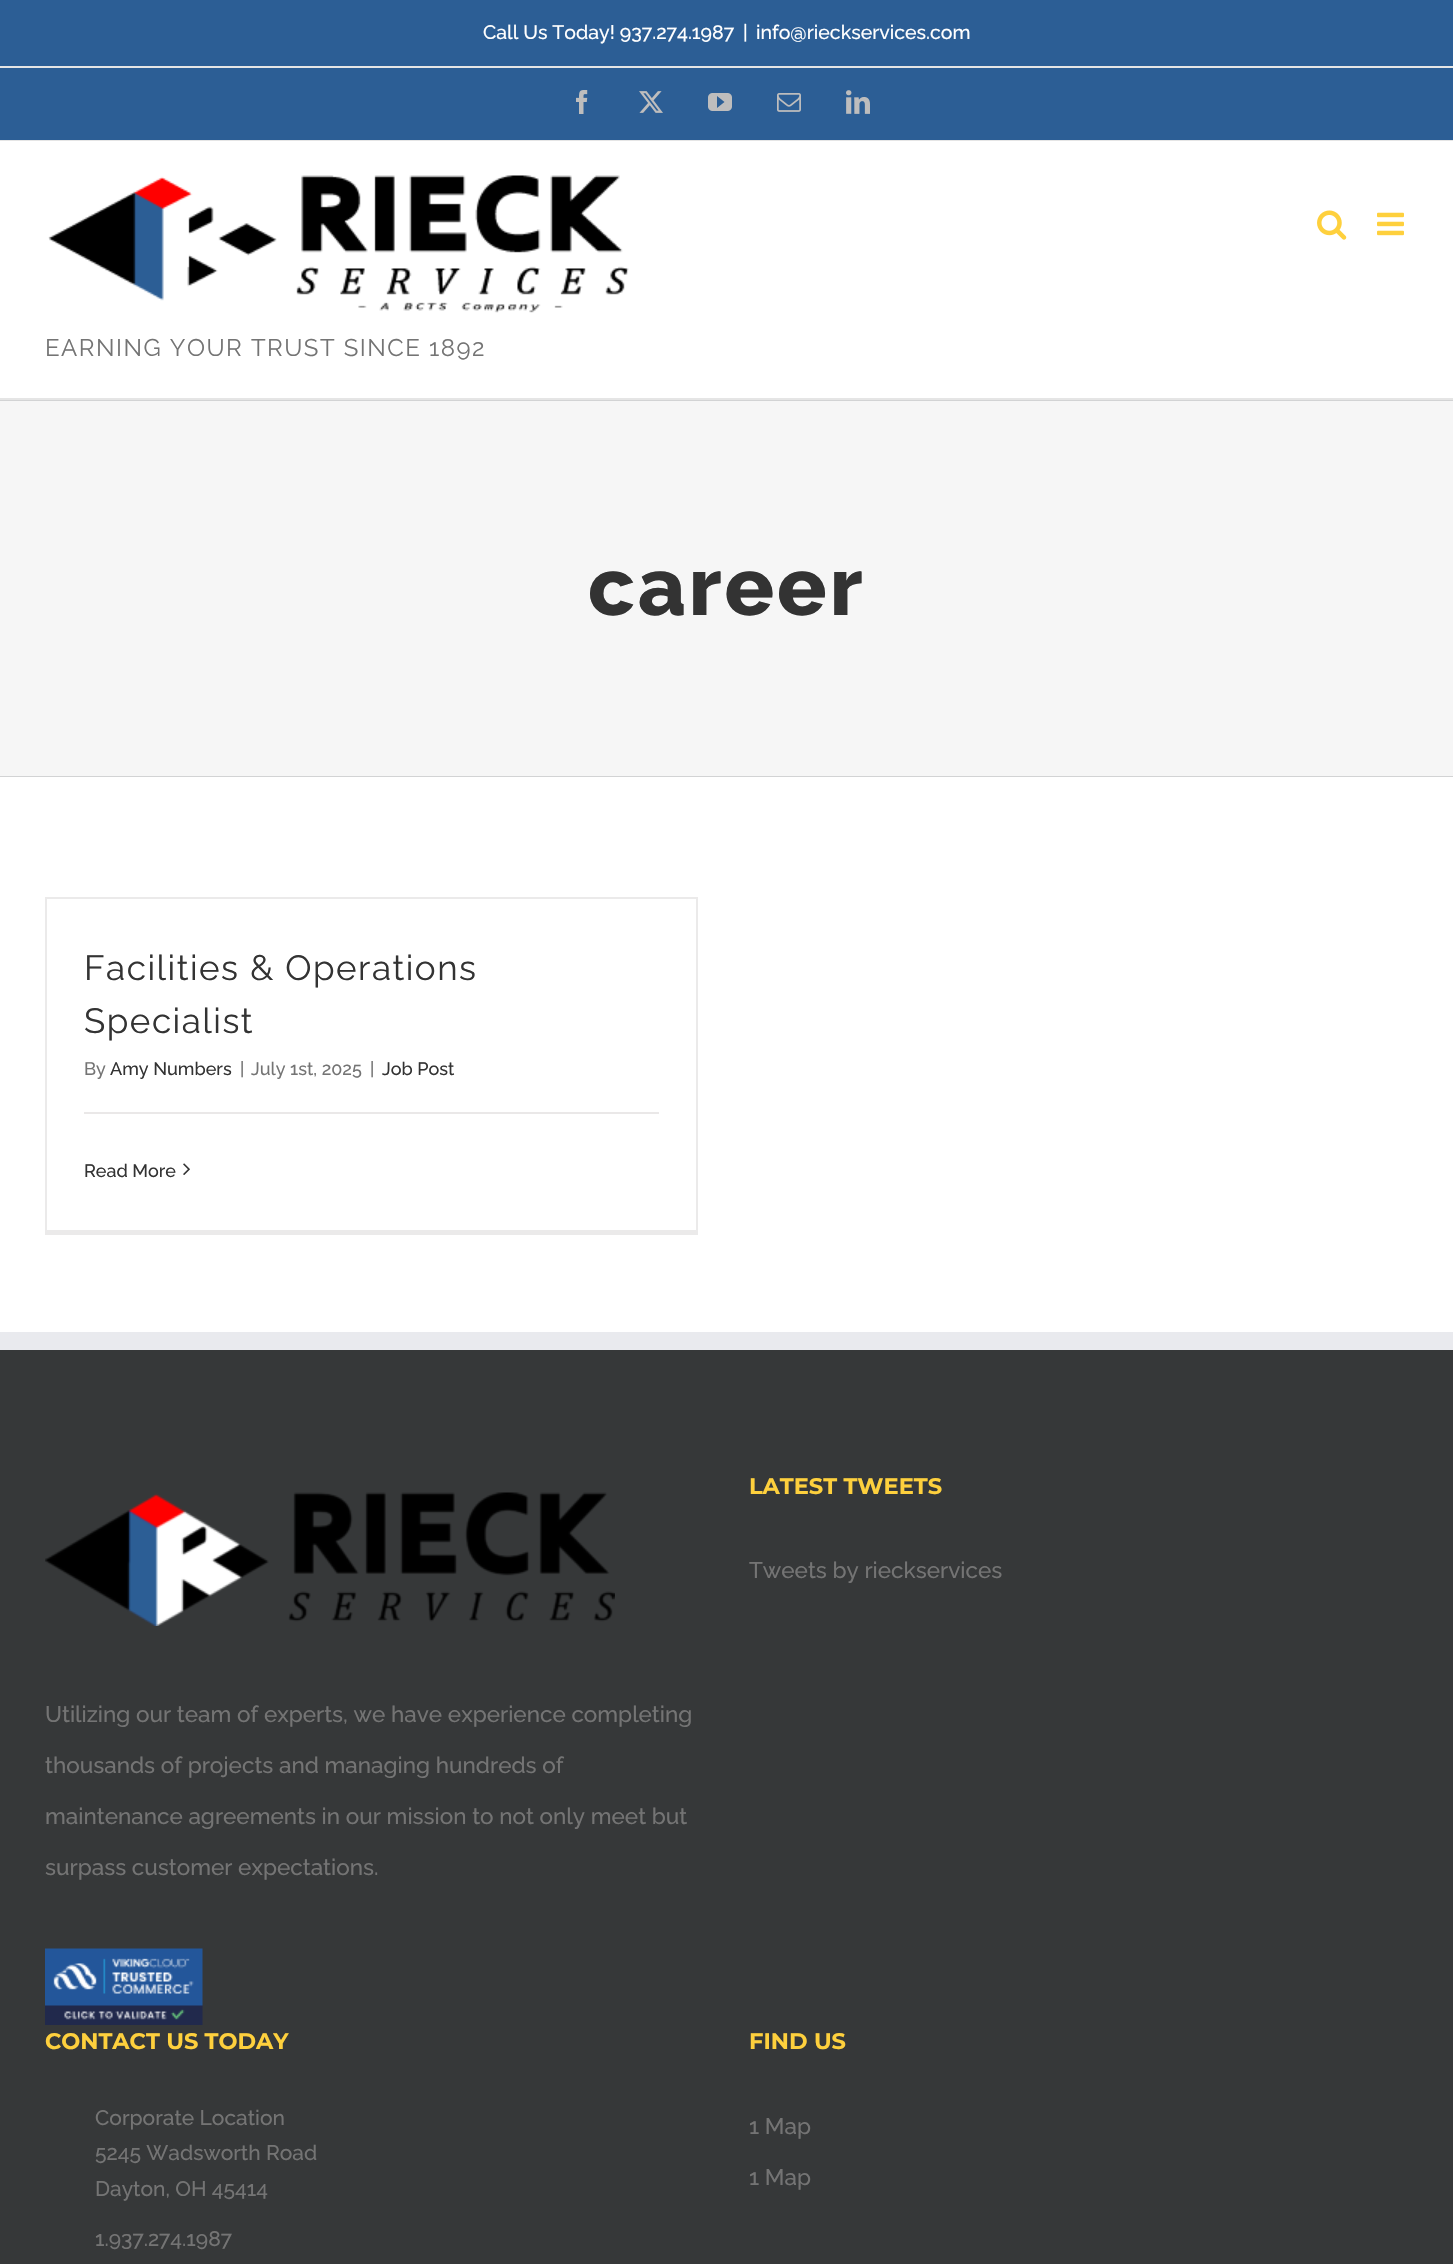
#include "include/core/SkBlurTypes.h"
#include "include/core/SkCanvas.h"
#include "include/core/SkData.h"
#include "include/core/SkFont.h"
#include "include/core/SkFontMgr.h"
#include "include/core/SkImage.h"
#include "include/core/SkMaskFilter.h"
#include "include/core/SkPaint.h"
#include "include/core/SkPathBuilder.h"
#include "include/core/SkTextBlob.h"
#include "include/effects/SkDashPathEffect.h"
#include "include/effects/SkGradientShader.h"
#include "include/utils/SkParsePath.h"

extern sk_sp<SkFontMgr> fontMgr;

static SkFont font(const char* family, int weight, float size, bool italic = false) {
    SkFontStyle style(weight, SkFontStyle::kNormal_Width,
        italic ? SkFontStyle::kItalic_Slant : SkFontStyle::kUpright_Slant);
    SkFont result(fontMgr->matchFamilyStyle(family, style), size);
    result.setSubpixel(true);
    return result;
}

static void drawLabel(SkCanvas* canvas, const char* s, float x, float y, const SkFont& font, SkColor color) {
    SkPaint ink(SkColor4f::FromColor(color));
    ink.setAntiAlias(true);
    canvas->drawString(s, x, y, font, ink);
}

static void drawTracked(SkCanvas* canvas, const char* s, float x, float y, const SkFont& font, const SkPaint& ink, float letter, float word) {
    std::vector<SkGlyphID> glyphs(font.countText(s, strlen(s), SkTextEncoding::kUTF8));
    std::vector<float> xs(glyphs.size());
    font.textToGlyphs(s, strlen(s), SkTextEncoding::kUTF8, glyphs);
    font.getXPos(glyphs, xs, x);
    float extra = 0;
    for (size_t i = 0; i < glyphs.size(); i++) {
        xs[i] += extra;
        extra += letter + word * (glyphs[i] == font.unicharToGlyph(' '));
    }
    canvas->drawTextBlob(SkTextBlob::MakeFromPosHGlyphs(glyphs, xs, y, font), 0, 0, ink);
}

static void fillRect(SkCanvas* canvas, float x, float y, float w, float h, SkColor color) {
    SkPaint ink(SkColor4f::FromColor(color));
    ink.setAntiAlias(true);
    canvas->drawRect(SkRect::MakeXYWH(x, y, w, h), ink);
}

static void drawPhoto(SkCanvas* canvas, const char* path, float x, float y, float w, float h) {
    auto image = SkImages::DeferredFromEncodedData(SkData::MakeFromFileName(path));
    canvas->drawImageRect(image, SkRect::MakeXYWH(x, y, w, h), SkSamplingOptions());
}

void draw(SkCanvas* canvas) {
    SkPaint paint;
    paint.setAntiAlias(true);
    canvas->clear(0xFFF6F6F6);
    fillRect(canvas, 0, 0, 1453, 140, 0xFF2C5E95);
    fillRect(canvas, 0, 140, 1453, 1, 0xFFE5E5E5);
    fillRect(canvas, 0, 66, 1453, 2, 0xFFE5E5E5);
    SkFont font1 = font("Raleway", 500, 19.5f);
    drawLabel(canvas, "Call Us Today! 937.274.1987", 483, 39, font1, 0xFFFFFFFF);
    drawLabel(canvas, "|", 743, 39, font1, 0xFFFFFFFF);
    drawLabel(canvas, "info@rieckservices.com", 756, 39, font1, 0xFFFFFFFF);
    drawPhoto(canvas, "assets/img1.png", 576, 90, 12, 24);
    drawPhoto(canvas, "assets/img2.png", 639, 91, 24, 22);
    drawPhoto(canvas, "assets/img3.png", 708, 93, 24, 18);
    drawPhoto(canvas, "assets/img4.png", 777, 93, 24, 19);
    drawPhoto(canvas, "assets/img5.png", 846, 90, 24, 24);
    fillRect(canvas, 0, 141, 1453, 257, 0xFFFFFFFF);
    fillRect(canvas, 0, 398, 1453, 2, 0xFFE5E5E5);
    drawPhoto(canvas, "assets/img6.png", 1317, 210, 30, 30);
    drawPhoto(canvas, "assets/img7.png", 1377, 212, 27, 24);
    drawPhoto(canvas, "assets/img8.png", 48, 175, 581, 138);
    SkFont font2 = font("Raleway", 400, 24);
    paint.setColor(0xFF747474);
    drawTracked(canvas, "EARNING YOUR TRUST SINCE 1892", 45, 356, font2, paint, 1.5f, 0);
    fillRect(canvas, 0, 400, 1453, 1, 0xFFD2D3D4);
    fillRect(canvas, 0, 776, 1453, 1, 0xFFD2D3D4);
    SkFont font3 = font("Raleway", 800, 82);
    paint.setColor(0xFF333333);
    drawTracked(canvas, "career", 588, 615, font3, paint, 3, 0);
    fillRect(canvas, 0, 777, 1453, 555, 0xFFFFFFFF);
    fillRect(canvas, 45, 897, 653, 2, 0xFFEBEAEA);
    fillRect(canvas, 696, 897, 2, 338, 0xFFEBEAEA);
    fillRect(canvas, 45, 1230, 653, 5, 0xFFEBEAEA);
    fillRect(canvas, 45, 897, 2, 338, 0xFFEBEAEA);
    SkFont font4 = font("Raleway", 400, 35);
    drawTracked(canvas, "Facilities & Operations", 84, 980, font4, paint, 1.5f, 0);
    drawTracked(canvas, "Specialist", 84, 1033, font4, paint, 1.5f, 0);
    SkFont font5 = font("Raleway", 500, 18);
    drawLabel(canvas, "By", 84, 1075, font5, 0xFF747474);
    drawLabel(canvas, "Amy Numbers", 110, 1075, font5, 0xFF333333);
    drawLabel(canvas, "|", 240, 1075, font5, 0xFF747474);
    drawLabel(canvas, "July 1st, 2025", 251, 1075, font5, 0xFF747474);
    drawLabel(canvas, "|", 370, 1075, font5, 0xFF747474);
    drawLabel(canvas, "Job Post", 382, 1075, font5, 0xFF333333);
    fillRect(canvas, 84, 1112, 575, 2, 0xFFEAE8E8);
    drawLabel(canvas, "Read More", 84, 1177, font5, 0xFF333333);
    drawPhoto(canvas, "assets/img9.png", 183, 1163, 7, 12);
    fillRect(canvas, 0, 1350, 1453, 914, 0xFF363839);
    fillRect(canvas, 0, 1332, 1453, 18, 0xFFE9EAEE);
    SkFont font6 = font("Montserrat", 700, 22.5f);
    drawLabel(canvas, "LATEST TWEETS", 749, 1494, font6, 0xFFFED03D);
    SkFont font7 = font("Raleway", 500, 22.5f);
    drawLabel(canvas, "Tweets by rieckservices", 749, 1578, font7, 0xFF747474);
    drawPhoto(canvas, "assets/img10.png", 45, 1492, 570, 134);
    drawLabel(canvas, "Utilizing our team of experts, we have experience completing", 45, 1722, font7, 0xFF747474);
    drawLabel(canvas, "thousands of projects and managing hundreds of", 45, 1773, font7, 0xFF747474);
    drawLabel(canvas, "maintenance agreements in our mission to not only meet but", 45, 1824, font7, 0xFF747474);
    drawLabel(canvas, "surpass customer expectations.", 45, 1875, font7, 0xFF747474);
    drawPhoto(canvas, "assets/img11.png", 45, 1948, 158, 77);
    drawLabel(canvas, "CONTACT US TODAY", 45, 2049, font6, 0xFFFED03D);
    SkFont font8 = font("Raleway", 500, 21);
    drawLabel(canvas, "Corporate Location", 95, 2125, font8, 0xFF747474);
    drawLabel(canvas, "5245 Wadsworth Road", 95, 2160, font8, 0xFF747474);
    drawLabel(canvas, "Dayton, OH 45414", 95, 2196, font8, 0xFF747474);
    drawLabel(canvas, "1.937.274.1987", 95, 2246, font8, 0xFF747474);
    drawLabel(canvas, "FIND US", 749, 2049, font6, 0xFFFED03D);
    drawLabel(canvas, "1 Map", 749, 2134, font7, 0xFF747474);
    drawLabel(canvas, "1 Map", 749, 2185, font7, 0xFF747474);
}
